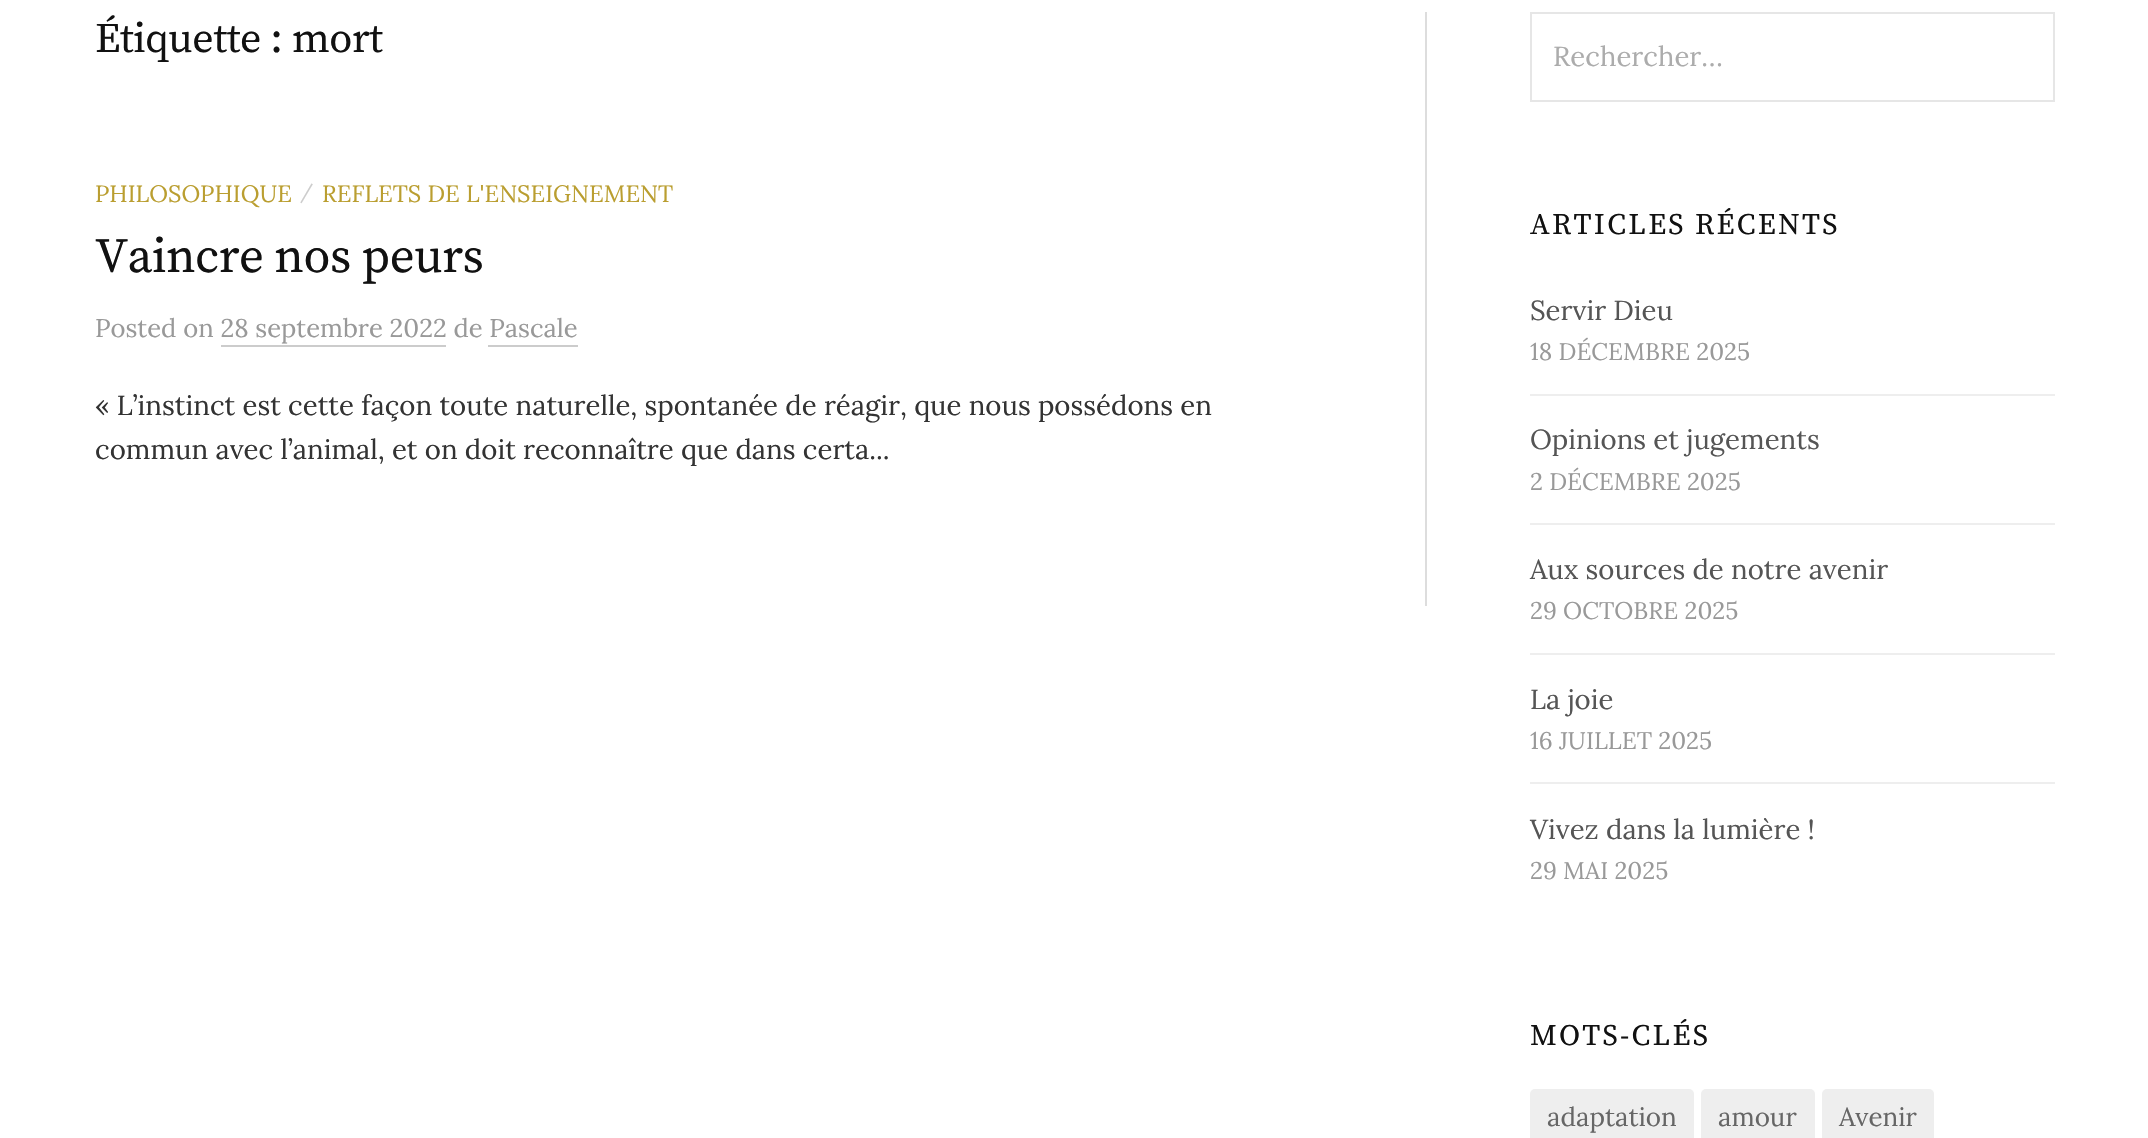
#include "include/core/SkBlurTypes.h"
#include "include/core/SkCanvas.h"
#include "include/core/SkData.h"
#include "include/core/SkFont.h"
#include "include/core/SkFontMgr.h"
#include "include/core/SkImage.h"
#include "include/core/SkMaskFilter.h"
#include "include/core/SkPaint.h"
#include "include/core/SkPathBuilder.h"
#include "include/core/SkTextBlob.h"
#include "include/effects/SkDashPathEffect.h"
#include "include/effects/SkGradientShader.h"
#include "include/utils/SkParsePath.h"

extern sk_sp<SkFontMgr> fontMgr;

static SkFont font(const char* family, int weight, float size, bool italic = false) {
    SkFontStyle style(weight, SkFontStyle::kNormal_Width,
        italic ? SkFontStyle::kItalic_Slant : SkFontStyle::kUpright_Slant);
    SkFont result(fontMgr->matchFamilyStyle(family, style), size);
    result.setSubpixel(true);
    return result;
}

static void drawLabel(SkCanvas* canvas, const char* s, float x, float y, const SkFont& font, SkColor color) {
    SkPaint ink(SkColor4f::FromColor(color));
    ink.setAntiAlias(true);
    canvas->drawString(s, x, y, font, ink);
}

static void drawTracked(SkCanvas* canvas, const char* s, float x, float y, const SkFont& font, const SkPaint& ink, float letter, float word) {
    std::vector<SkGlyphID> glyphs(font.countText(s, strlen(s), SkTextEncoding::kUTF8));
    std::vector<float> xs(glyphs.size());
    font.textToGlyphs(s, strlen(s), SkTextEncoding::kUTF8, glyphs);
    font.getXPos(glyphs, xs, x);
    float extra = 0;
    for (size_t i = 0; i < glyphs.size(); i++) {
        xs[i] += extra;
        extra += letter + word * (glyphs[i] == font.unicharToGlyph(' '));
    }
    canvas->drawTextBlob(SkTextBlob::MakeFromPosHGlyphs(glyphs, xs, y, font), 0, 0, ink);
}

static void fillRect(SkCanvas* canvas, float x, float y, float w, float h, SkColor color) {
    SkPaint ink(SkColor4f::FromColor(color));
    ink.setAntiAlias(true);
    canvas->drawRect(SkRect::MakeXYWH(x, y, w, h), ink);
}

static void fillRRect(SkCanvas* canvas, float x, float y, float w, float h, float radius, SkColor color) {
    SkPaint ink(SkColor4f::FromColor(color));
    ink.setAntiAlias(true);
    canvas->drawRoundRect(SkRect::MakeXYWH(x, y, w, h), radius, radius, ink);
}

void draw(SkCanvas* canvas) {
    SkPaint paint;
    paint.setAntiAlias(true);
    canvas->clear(0xFFFFFFFF);
    fillRect(canvas, 1425, 12, 2, 594, 0xFFDDDDDD);
    SkFont font1 = font("Source Serif Pro", 400, 42);
    paint.setColor(0xFF111111);
    drawTracked(canvas, "Étiquette : mort", 95, 52, font1, paint, -0.4f, 0);
    SkFont font2 = font("Lora", 400, 23.6f);
    drawLabel(canvas, "PHILOSOPHIQUE", 95, 202, font2, 0xFFBA9E30);
    SkFont font3 = font("Lora", 400, 19);
    drawLabel(canvas, "/", 300, 198, font3, 0xFFCCCCCC);
    drawLabel(canvas, "REFLETS DE L'ENSEIGNEMENT", 322, 202, font2, 0xFFBA9E30);
    SkFont font4 = font("Source Serif Pro", 400, 49);
    drawTracked(canvas, "Vaincre nos peurs", 95, 272, font4, paint, -0.5f, 0);
    SkFont font5 = font("Lora", 400, 25.6f);
    drawLabel(canvas, "Posted on 28 septembre 2022 de Pascale", 95, 337, font5, 0xFF999999);
    fillRect(canvas, 221, 345, 225, 2, 0xFFCCCCCC);
    fillRect(canvas, 488, 345, 90, 2, 0xFFCCCCCC);
    SkFont font6 = font("Lora", 400, 27.55f);
    drawLabel(canvas, "« L’instinct est cette façon toute naturelle, spontanée de réagir, que nous possédons en", 95, 415, font6, 0xFF333333);
    drawLabel(canvas, "commun avec l’animal, et on doit reconnaître que dans certa...", 95, 459, font6, 0xFF333333);
    paint.setStroke(true);
    paint.setStrokeWidth(2);
    paint.setColor(0xFFE6E6E6);
    canvas->drawRect(SkRect::MakeXYWH(1531, 13, 523, 88), paint);
    drawLabel(canvas, "Rechercher…", 1553, 66, font6, 0xFFACACAC);
    SkFont font7 = font("Source Serif Pro", 400, 29.75f);
    paint.setStroke(false);
    paint.setColor(0xFF111111);
    drawTracked(canvas, "ARTICLES RÉCENTS", 1530, 234, font7, paint, 2.25f, 0);
    drawLabel(canvas, "Servir Dieu", 1530, 320, font6, 0xFF555555);
    SkFont font8 = font("Lora", 400, 24);
    drawLabel(canvas, "18 DÉCEMBRE 2025", 1530, 360, font8, 0xFF999999);
    fillRect(canvas, 1530, 394, 525, 2, 0xFFEEEEEE);
    drawLabel(canvas, "Opinions et jugements", 1530, 449, font6, 0xFF555555);
    drawLabel(canvas, "2 DÉCEMBRE 2025", 1530, 490, font8, 0xFF999999);
    fillRect(canvas, 1530, 523, 525, 2, 0xFFEEEEEE);
    drawLabel(canvas, "Aux sources de notre avenir", 1530, 579, font6, 0xFF555555);
    drawLabel(canvas, "29 OCTOBRE 2025", 1530, 619, font8, 0xFF999999);
    fillRect(canvas, 1530, 653, 525, 2, 0xFFEEEEEE);
    drawLabel(canvas, "La joie", 1530, 709, font6, 0xFF555555);
    drawLabel(canvas, "16 JUILLET 2025", 1530, 749, font8, 0xFF999999);
    fillRect(canvas, 1530, 782, 525, 2, 0xFFEEEEEE);
    drawLabel(canvas, "Vivez dans la lumière !", 1530, 839, font6, 0xFF555555);
    drawLabel(canvas, "29 MAI 2025", 1530, 879, font8, 0xFF999999);
    drawTracked(canvas, "MOTS-CLÉS", 1530, 1045, font7, paint, 2.25f, 0);
    fillRRect(canvas, 1530, 1089, 164, 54, 5, 0xFFEEEEEE);
    SkFont font9 = font("Lora", 400, 26);
    drawLabel(canvas, "adaptation", 1547, 1126, font9, 0xFF666666);
    fillRRect(canvas, 1701, 1089, 114, 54, 5, 0xFFEEEEEE);
    drawLabel(canvas, "amour", 1718, 1126, font9, 0xFF666666);
    fillRRect(canvas, 1822, 1089, 112, 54, 5, 0xFFEEEEEE);
    drawLabel(canvas, "Avenir", 1839, 1126, font9, 0xFF666666);
}
